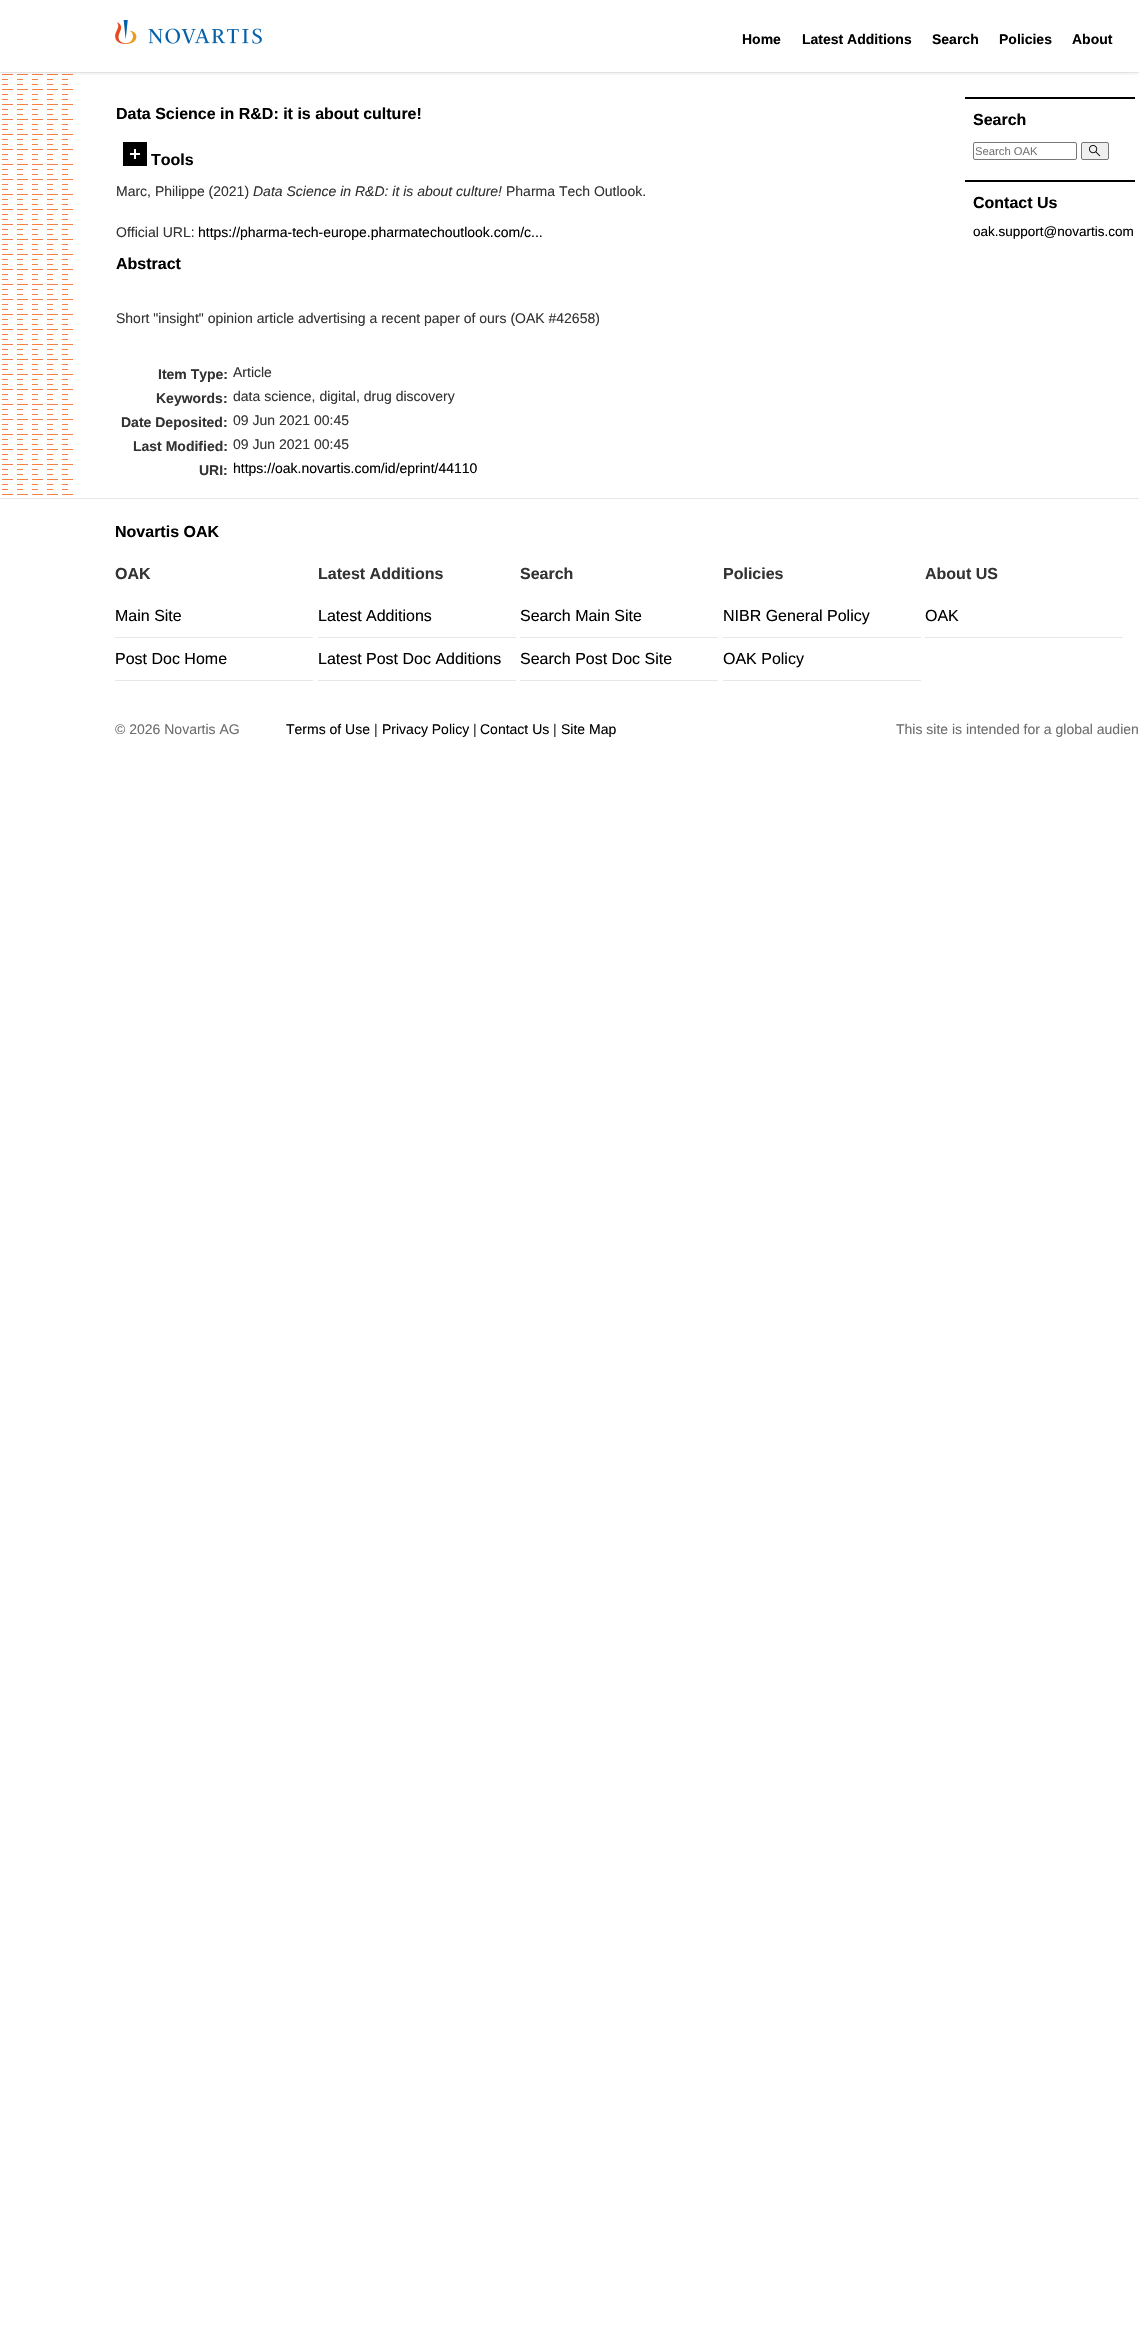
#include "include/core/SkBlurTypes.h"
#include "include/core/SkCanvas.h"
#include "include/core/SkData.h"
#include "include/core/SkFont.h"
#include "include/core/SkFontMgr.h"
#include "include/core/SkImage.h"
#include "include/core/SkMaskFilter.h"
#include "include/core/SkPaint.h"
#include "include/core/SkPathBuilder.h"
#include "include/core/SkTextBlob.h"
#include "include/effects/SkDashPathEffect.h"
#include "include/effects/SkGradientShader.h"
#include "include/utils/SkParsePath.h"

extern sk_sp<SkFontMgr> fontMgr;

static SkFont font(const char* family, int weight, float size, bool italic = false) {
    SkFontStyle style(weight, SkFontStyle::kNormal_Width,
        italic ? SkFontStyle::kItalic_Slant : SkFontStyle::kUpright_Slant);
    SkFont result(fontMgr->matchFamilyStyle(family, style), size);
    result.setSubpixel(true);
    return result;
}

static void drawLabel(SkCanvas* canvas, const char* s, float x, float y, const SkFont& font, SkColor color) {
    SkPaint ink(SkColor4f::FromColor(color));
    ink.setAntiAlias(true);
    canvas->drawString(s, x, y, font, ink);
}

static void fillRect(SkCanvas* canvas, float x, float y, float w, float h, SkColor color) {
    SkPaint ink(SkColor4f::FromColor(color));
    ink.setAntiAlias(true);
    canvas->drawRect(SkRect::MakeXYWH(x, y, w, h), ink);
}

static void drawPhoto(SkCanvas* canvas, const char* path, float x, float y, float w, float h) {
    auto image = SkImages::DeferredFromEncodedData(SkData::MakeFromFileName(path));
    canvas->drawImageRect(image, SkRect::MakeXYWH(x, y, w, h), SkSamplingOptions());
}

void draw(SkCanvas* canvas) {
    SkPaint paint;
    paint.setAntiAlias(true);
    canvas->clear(0xFFFFFFFF);
    fillRect(canvas, 0, 72, 1139, 1, 0xFFEDEDED);
    drawPhoto(canvas, "assets/img2.png", 2, 74, 71, 421);
    canvas->save();
    canvas->clipRect(SkRect::MakeXYWH(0, 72, 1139, 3));
    paint.setColor(0x1A000000);
    paint.setMaskFilter(SkMaskFilter::MakeBlur(kNormal_SkBlurStyle, 4));
    canvas->drawRect(SkRect::MakeXYWH(0, 0, 1139, 72), paint);
    paint.setMaskFilter(nullptr);
    canvas->restore();
    drawPhoto(canvas, "assets/img1.png", 115, 20, 147, 24);
    SkFont font1 = font("Liberation Sans", 700, 14);
    drawLabel(canvas, "Home", 742, 44, font1, 0xFF000000);
    drawLabel(canvas, "Latest Additions", 802, 44, font1, 0xFF000000);
    drawLabel(canvas, "Search", 932, 44, font1, 0xFF000000);
    drawLabel(canvas, "Policies", 999, 44, font1, 0xFF000000);
    drawLabel(canvas, "About", 1072, 44, font1, 0xFF000000);
    SkFont font2 = font("Liberation Sans", 700, 16);
    drawLabel(canvas, "Data Science in R&D: it is about culture!", 116, 119, font2, 0xFF000000);
    drawPhoto(canvas, "assets/img3.png", 123, 142, 24, 24);
    drawLabel(canvas, "Tools", 151, 165, font2, 0xFF000000);
    SkFont font3 = font("Liberation Sans", 400, 14);
    drawLabel(canvas, "Marc, Philippe (2021)", 116, 196, font3, 0xFF333333);
    SkFont font4 = font("Liberation Sans", 400, 14, true);
    drawLabel(canvas, "Data Science in R&D: it is about culture!", 253, 196, font4, 0xFF333333);
    drawLabel(canvas, "Pharma Tech Outlook.", 506, 196, font3, 0xFF333333);
    drawLabel(canvas, "Official URL:", 116, 237, font3, 0xFF333333);
    drawLabel(canvas, "https://pharma-tech-europe.pharmatechoutlook.com/c...", 198, 237, font3, 0xFF000000);
    drawLabel(canvas, "Abstract", 116, 269, font2, 0xFF000000);
    drawLabel(canvas, "Short \"insight\" opinion article advertising a recent paper of ours (OAK #42658)", 116, 323, font3, 0xFF333333);
    drawLabel(canvas, "Item Type:", 158, 379, font1, 0xFF333333);
    drawLabel(canvas, "Article", 233, 377, font3, 0xFF333333);
    drawLabel(canvas, "Keywords:", 156, 403, font1, 0xFF333333);
    drawLabel(canvas, "data science, digital, drug discovery", 233, 401, font3, 0xFF333333);
    drawLabel(canvas, "Date Deposited:", 121, 427, font1, 0xFF333333);
    drawLabel(canvas, "09 Jun 2021 00:45", 233, 425, font3, 0xFF333333);
    drawLabel(canvas, "Last Modified:", 133, 451, font1, 0xFF333333);
    drawLabel(canvas, "09 Jun 2021 00:45", 233, 449, font3, 0xFF333333);
    drawLabel(canvas, "URI:", 199, 475, font1, 0xFF333333);
    drawLabel(canvas, "https://oak.novartis.com/id/eprint/44110", 233, 473, font3, 0xFF000000);
    fillRect(canvas, 965, 97, 170, 2, 0xFF000000);
    drawLabel(canvas, "Search", 973, 125, font2, 0xFF000000);
    paint.setStroke(true);
    paint.setStrokeWidth(1);
    paint.setColor(0xFF767676);
    canvas->drawRoundRect(SkRect::MakeXYWH(973.5f, 142.5f, 103, 17), 1.5f, 1.5f, paint);
    SkFont font5 = font("Liberation Sans", 400, 11.25f);
    drawLabel(canvas, "Search OAK", 975, 155, font5, 0xFF757575);
    paint.setStroke(false);
    paint.setColor(0xFFEFEFEF);
    canvas->drawRoundRect(SkRect::MakeXYWH(1081.5f, 142.5f, 27, 17), 1.5f, 1.5f, paint);
    paint.setStroke(true);
    paint.setColor(0xFF767676);
    canvas->drawRoundRect(SkRect::MakeXYWH(1081.5f, 142.5f, 27, 17), 1.5f, 1.5f, paint);
    drawPhoto(canvas, "assets/img4.png", 1089, 145, 12, 12);
    fillRect(canvas, 965, 180, 170, 2, 0xFF000000);
    drawLabel(canvas, "Contact Us", 973, 208, font2, 0xFF000000);
    SkFont font6 = font("Liberation Sans", 400, 13.5f);
    drawLabel(canvas, "oak.support@novartis.com", 973, 236, font6, 0xFF000000);
    fillRect(canvas, 0, 498, 1139, 1, 0xFFE6E6E6);
    drawLabel(canvas, "Novartis OAK", 115, 537, font2, 0xFF000000);
    drawLabel(canvas, "OAK", 115, 579, font2, 0xFF333333);
    drawLabel(canvas, "Latest Additions", 318, 579, font2, 0xFF333333);
    drawLabel(canvas, "Search", 520, 579, font2, 0xFF333333);
    drawLabel(canvas, "Policies", 723, 579, font2, 0xFF333333);
    drawLabel(canvas, "About US", 925, 579, font2, 0xFF333333);
    fillRect(canvas, 115, 637, 198, 1, 0xFFE7E7E6);
    SkFont font7 = font("Liberation Sans", 400, 16);
    drawLabel(canvas, "Main Site", 115, 621, font7, 0xFF000000);
    fillRect(canvas, 318, 637, 198, 1, 0xFFE7E7E6);
    drawLabel(canvas, "Latest Additions", 318, 621, font7, 0xFF000000);
    fillRect(canvas, 520, 637, 198, 1, 0xFFE7E7E6);
    drawLabel(canvas, "Search Main Site", 520, 621, font7, 0xFF000000);
    fillRect(canvas, 723, 637, 198, 1, 0xFFE7E7E6);
    drawLabel(canvas, "NIBR General Policy", 723, 621, font7, 0xFF000000);
    fillRect(canvas, 925, 637, 198, 1, 0xFFE7E7E6);
    drawLabel(canvas, "OAK", 925, 621, font7, 0xFF000000);
    fillRect(canvas, 115, 680, 198, 1, 0xFFE7E7E6);
    drawLabel(canvas, "Post Doc Home", 115, 664, font7, 0xFF000000);
    fillRect(canvas, 318, 680, 198, 1, 0xFFE7E7E6);
    drawLabel(canvas, "Latest Post Doc Additions", 318, 664, font7, 0xFF000000);
    fillRect(canvas, 520, 680, 198, 1, 0xFFE7E7E6);
    drawLabel(canvas, "Search Post Doc Site", 520, 664, font7, 0xFF000000);
    fillRect(canvas, 723, 680, 198, 1, 0xFFE7E7E6);
    drawLabel(canvas, "OAK Policy", 723, 664, font7, 0xFF000000);
    drawLabel(canvas, "© 2026 Novartis AG", 115, 734, font3, 0xFF6D6D6D);
    drawLabel(canvas, "Terms of Use", 286, 734, font3, 0xFF000000);
    drawLabel(canvas, "|", 374, 734, font3, 0xFF333333);
    drawLabel(canvas, "Privacy Policy", 382, 734, font3, 0xFF000000);
    drawLabel(canvas, "|", 473, 734, font3, 0xFF333333);
    drawLabel(canvas, "Contact Us", 480, 734, font3, 0xFF000000);
    drawLabel(canvas, "|", 553, 734, font3, 0xFF333333);
    drawLabel(canvas, "Site Map", 561, 734, font3, 0xFF000000);
    drawLabel(canvas, "This site is intended for a global audien", 896, 734, font3, 0xFF6D6D6D);
}
